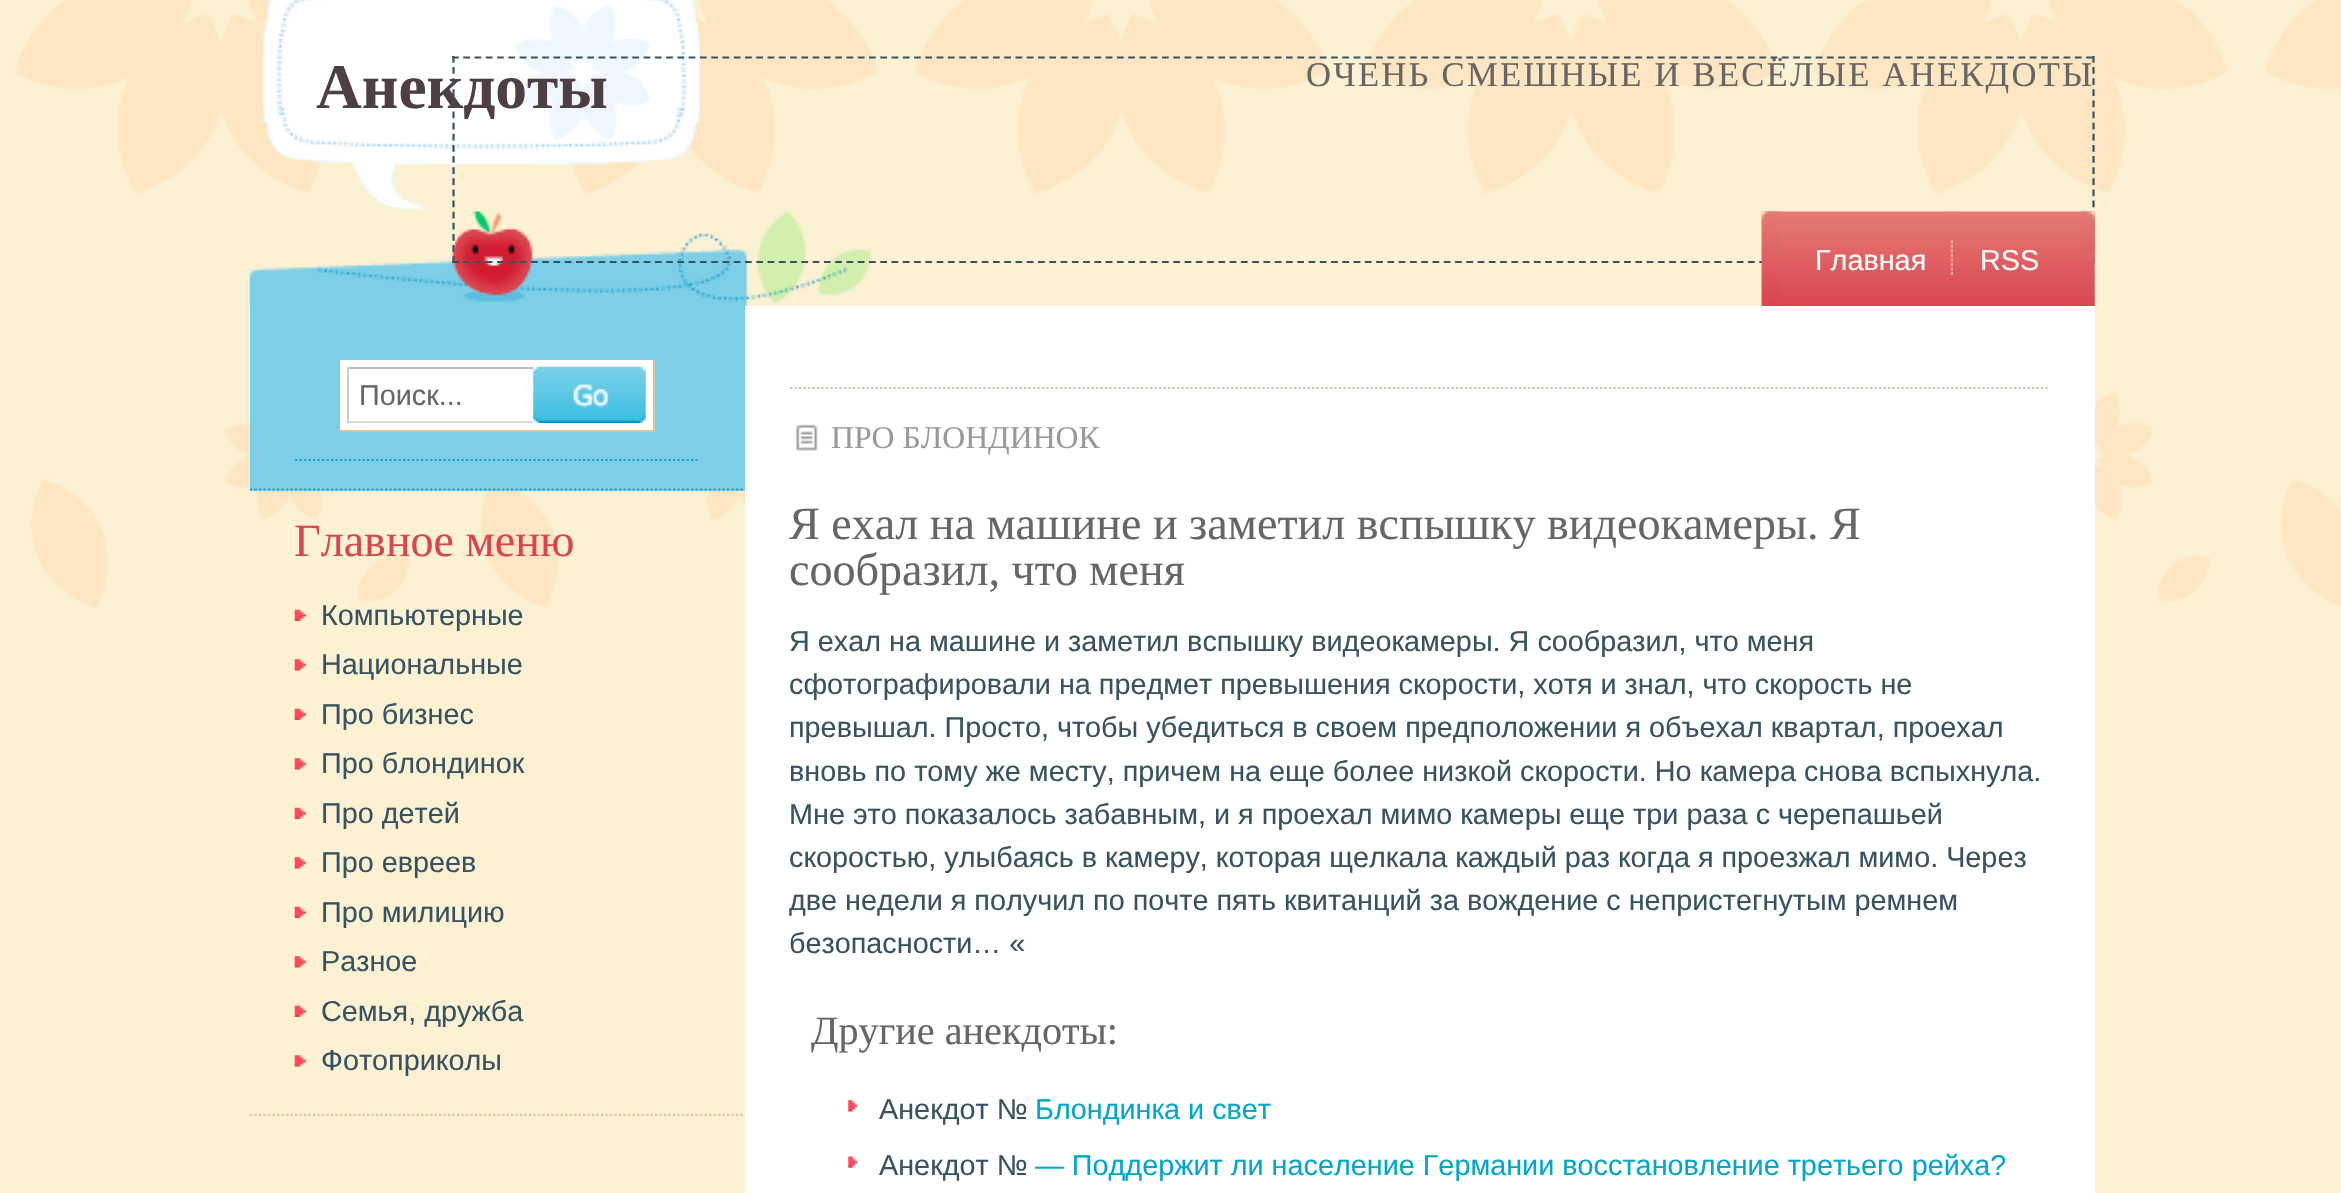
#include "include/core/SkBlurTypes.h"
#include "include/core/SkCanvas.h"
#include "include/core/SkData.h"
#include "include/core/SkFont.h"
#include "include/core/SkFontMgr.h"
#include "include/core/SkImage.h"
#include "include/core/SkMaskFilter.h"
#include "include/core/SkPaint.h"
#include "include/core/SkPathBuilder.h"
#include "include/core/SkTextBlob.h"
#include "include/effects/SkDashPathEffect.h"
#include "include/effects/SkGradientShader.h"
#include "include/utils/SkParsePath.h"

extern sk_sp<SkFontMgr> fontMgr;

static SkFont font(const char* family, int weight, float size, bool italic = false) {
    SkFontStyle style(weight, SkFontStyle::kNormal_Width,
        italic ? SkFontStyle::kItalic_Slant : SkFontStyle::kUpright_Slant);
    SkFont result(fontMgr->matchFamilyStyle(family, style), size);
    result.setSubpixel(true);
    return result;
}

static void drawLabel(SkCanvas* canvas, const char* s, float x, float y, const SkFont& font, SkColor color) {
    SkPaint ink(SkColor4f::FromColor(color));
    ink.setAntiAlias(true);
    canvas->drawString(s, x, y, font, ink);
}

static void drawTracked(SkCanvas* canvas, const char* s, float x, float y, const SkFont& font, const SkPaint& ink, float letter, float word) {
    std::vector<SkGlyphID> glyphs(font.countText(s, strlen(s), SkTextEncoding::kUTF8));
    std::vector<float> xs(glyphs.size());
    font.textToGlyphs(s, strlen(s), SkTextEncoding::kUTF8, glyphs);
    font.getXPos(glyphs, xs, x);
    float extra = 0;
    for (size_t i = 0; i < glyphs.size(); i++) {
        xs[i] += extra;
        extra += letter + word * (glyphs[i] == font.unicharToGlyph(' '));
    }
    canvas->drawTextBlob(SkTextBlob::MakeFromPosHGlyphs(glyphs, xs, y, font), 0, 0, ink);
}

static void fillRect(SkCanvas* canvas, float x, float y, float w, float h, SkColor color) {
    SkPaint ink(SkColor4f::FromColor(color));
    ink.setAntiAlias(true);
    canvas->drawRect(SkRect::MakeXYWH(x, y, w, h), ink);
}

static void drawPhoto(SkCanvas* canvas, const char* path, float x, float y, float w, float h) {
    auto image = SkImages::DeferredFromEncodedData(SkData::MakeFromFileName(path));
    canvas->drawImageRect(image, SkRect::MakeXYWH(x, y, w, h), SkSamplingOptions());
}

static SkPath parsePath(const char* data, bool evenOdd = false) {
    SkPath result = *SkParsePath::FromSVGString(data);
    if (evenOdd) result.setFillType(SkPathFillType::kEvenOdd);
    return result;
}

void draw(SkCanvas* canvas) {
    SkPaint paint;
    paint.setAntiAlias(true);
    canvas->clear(0xFFFCF1D3);
    drawPhoto(canvas, "assets/img1.png", 15, 0, 2326, 608);
    drawPhoto(canvas, "assets/img2.png", 262, 0, 439, 210);
    SkFont font1 = font("Liberation Serif", 400, 34.6f);
    paint.setColor(0xFF666666);
    drawTracked(canvas, "ОЧЕНЬ СМЕШНЫЕ И ВЕСЁЛЫЕ АНЕКДОТЫ", 1306, 86, font1, paint, 2.25f, 0);
    paint.setStroke(true);
    paint.setStrokeWidth(2.2f);
    paint.setColor(0xFF375362);
    paint.setPathEffect(SkDashPathEffect::Make({{6.75f, 4.52f}}, 0));
    canvas->drawPath(parsePath("M452 57.5H2095"), paint);
    paint.setPathEffect(nullptr);
    paint.setPathEffect(SkDashPathEffect::Make({{6.75f, 4.37f}}, 0));
    canvas->drawPath(parsePath("M2093.5 56V263"), paint);
    paint.setPathEffect(nullptr);
    drawPhoto(canvas, "assets/img3.png", 249, 211, 623, 95);
    paint.setPathEffect(SkDashPathEffect::Make({{6.75f, 4.52f}}, 0));
    canvas->drawPath(parsePath("M452 262H2095"), paint);
    paint.setPathEffect(nullptr);
    SkFont font2 = font("Liberation Serif", 700, 63.5f);
    drawLabel(canvas, "Анекдоты", 316, 108, font2, 0xFF4D3F44);
    paint.setPathEffect(SkDashPathEffect::Make({{6.75f, 4.37f}}, 0));
    canvas->drawPath(parsePath("M453.5 56V263"), paint);
    paint.setPathEffect(nullptr);
    drawPhoto(canvas, "assets/img4.png", 1761, 211, 334, 95);
    drawPhoto(canvas, "assets/img5.png", 1761, 211, 19, 95);
    drawPhoto(canvas, "assets/img6.png", 2081, 211, 14, 42);
    drawPhoto(canvas, "assets/img7.png", 1950, 211, 3, 64);
    SkFont font3 = font("Liberation Sans", 400, 28.8f);
    drawLabel(canvas, "Главная", 1815, 270, font3, 0xFFFFFFFF);
    drawLabel(canvas, "RSS", 1980, 270, font3, 0xFFFFFFFF);
    fillRect(canvas, 250, 306, 495, 185, 0xFF7DCFE7);
    paint.setColor(0xFF1F9FD4);
    paint.setPathEffect(SkDashPathEffect::Make({{2.25f, 2.25f}}, 0));
    canvas->drawPath(parsePath("M250 489.5H745"), paint);
    paint.setPathEffect(nullptr);
    paint.setPathEffect(SkDashPathEffect::Make({{2.25f, 2.25f}}, 0));
    canvas->drawPath(parsePath("M295 460H700"), paint);
    paint.setPathEffect(nullptr);
    fillRect(canvas, 340, 360, 313, 70, 0xFFFFFFFF);
    fillRect(canvas, 653, 360, 2, 72, 0xFFDCC49A);
    fillRect(canvas, 340, 430, 315, 2, 0xFFDCC49A);
    fillRect(canvas, 347, 367, 187, 2, 0xFFBDBDBD);
    fillRect(canvas, 347, 421, 187, 2, 0xFFDDDDDD);
    fillRect(canvas, 347, 367, 2, 56, 0xFFCCCCCC);
    drawPhoto(canvas, "assets/img8.png", 533, 366, 113, 57);
    drawLabel(canvas, "Поиск...", 359, 405, font3, 0xFF666666);
    paint.setColor(0xFFDCC49A);
    paint.setPathEffect(SkDashPathEffect::Make({{2.25f, 2.25f}}, 0));
    canvas->drawPath(parsePath("M250 1115H745"), paint);
    paint.setPathEffect(nullptr);
    SkFont font4 = font("Liberation Serif", 400, 46.1f);
    drawLabel(canvas, "Главное меню", 294, 556, font4, 0xFFDA444F);
    drawPhoto(canvas, "assets/img9.png", 294, 609, 12, 12);
    drawLabel(canvas, "Компьютерные", 321, 625, font3, 0xFF375362);
    drawPhoto(canvas, "assets/img10.png", 294, 659, 12, 12);
    drawLabel(canvas, "Национальные", 321, 674, font3, 0xFF375362);
    drawPhoto(canvas, "assets/img9.png", 294, 708, 12, 12);
    drawLabel(canvas, "Про бизнес", 321, 724, font3, 0xFF375362);
    drawPhoto(canvas, "assets/img10.png", 294, 758, 12, 12);
    drawLabel(canvas, "Про блондинок", 321, 773, font3, 0xFF375362);
    drawPhoto(canvas, "assets/img9.png", 294, 807, 12, 12);
    drawLabel(canvas, "Про детей", 321, 823, font3, 0xFF375362);
    drawPhoto(canvas, "assets/img10.png", 294, 857, 12, 12);
    drawLabel(canvas, "Про евреев", 321, 872, font3, 0xFF375362);
    drawPhoto(canvas, "assets/img9.png", 294, 906, 12, 12);
    drawLabel(canvas, "Про милицию", 321, 922, font3, 0xFF375362);
    drawPhoto(canvas, "assets/img10.png", 294, 956, 12, 12);
    drawLabel(canvas, "Разное", 321, 971, font3, 0xFF375362);
    drawPhoto(canvas, "assets/img9.png", 294, 1005, 12, 12);
    drawLabel(canvas, "Семья, дружба", 321, 1021, font3, 0xFF375362);
    drawPhoto(canvas, "assets/img10.png", 294, 1055, 12, 12);
    drawLabel(canvas, "Фотоприколы", 321, 1070, font3, 0xFF375362);
    fillRect(canvas, 745, 306, 1350, 887, 0xFFFFFFFF);
    paint.setPathEffect(SkDashPathEffect::Make({{2.25f, 2.25f}}, 0));
    canvas->drawPath(parsePath("M790 388H2050"), paint);
    paint.setPathEffect(nullptr);
    drawPhoto(canvas, "assets/img11.png", 796, 424, 22, 27);
    SkFont font5 = font("Liberation Serif", 400, 31.75f);
    drawLabel(canvas, "ПРО БЛОНДИНОК", 831, 448, font5, 0xFF999999);
    drawLabel(canvas, "Я ехал на машине и заметил вспышку видеокамеры. Я", 789, 539, font4, 0xFF666666);
    drawLabel(canvas, "сообразил, что меня", 789, 585, font4, 0xFF666666);
    drawLabel(canvas, "Я ехал на машине и заметил вспышку видеокамеры. Я сообразил, что меня", 789, 651, font3, 0xFF375362);
    drawLabel(canvas, "сфотографировали на предмет превышения скорости, хотя и знал, что скорость не", 789, 694, font3, 0xFF375362);
    drawLabel(canvas, "превышал. Просто, чтобы убедиться в своем предположении я объехал квартал, проехал", 789, 737, font3, 0xFF375362);
    drawLabel(canvas, "вновь по тому же месту, причем на еще более низкой скорости. Но камера снова вспыхнула.", 789, 781, font3, 0xFF375362);
    drawLabel(canvas, "Мне это показалось забавным, и я проехал мимо камеры еще три раза с черепашьей", 789, 824, font3, 0xFF375362);
    drawLabel(canvas, "скоростью, улыбаясь в камеру, которая щелкала каждый раз когда я проезжал мимо. Через", 789, 867, font3, 0xFF375362);
    drawLabel(canvas, "две недели я получил по почте пять квитанций за вождение с непристегнутым ремнем", 789, 910, font3, 0xFF375362);
    drawLabel(canvas, "безопасности… «", 789, 953, font3, 0xFF375362);
    SkFont font6 = font("Liberation Serif", 400, 40.25f);
    drawLabel(canvas, "Другие анекдоты:", 811, 1044, font6, 0xFF666666);
    drawPhoto(canvas, "assets/img12.png", 848, 1100, 10, 12);
    drawLabel(canvas, "Анекдот №", 879, 1119, font3, 0xFF375362);
    drawLabel(canvas, "Блондинка и свет", 1035, 1119, font3, 0xFF00A6CC);
    drawPhoto(canvas, "assets/img13.png", 848, 1156, 10, 12);
    drawLabel(canvas, "Анекдот №", 879, 1175, font3, 0xFF375362);
    drawLabel(canvas, "— Поддержит ли население Германии восстановление третьего рейха?", 1035, 1175, font3, 0xFF00A6CC);
}
